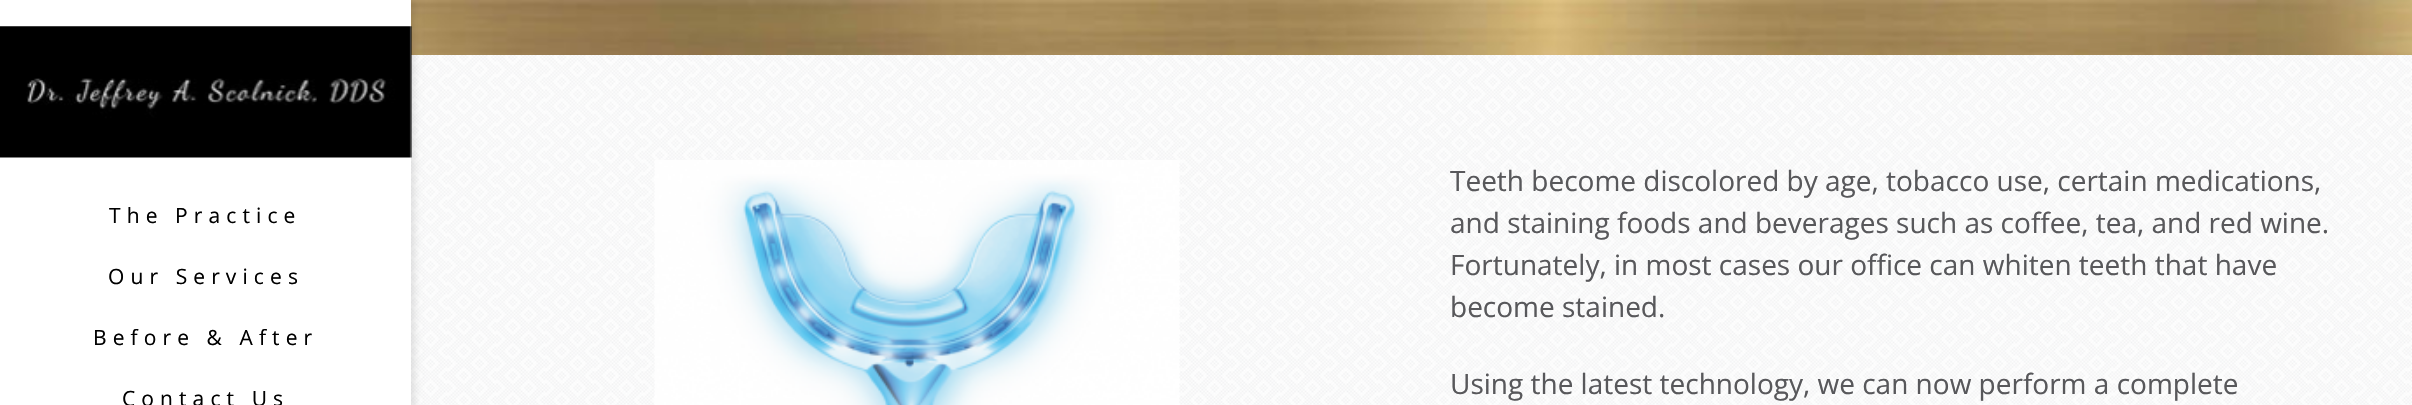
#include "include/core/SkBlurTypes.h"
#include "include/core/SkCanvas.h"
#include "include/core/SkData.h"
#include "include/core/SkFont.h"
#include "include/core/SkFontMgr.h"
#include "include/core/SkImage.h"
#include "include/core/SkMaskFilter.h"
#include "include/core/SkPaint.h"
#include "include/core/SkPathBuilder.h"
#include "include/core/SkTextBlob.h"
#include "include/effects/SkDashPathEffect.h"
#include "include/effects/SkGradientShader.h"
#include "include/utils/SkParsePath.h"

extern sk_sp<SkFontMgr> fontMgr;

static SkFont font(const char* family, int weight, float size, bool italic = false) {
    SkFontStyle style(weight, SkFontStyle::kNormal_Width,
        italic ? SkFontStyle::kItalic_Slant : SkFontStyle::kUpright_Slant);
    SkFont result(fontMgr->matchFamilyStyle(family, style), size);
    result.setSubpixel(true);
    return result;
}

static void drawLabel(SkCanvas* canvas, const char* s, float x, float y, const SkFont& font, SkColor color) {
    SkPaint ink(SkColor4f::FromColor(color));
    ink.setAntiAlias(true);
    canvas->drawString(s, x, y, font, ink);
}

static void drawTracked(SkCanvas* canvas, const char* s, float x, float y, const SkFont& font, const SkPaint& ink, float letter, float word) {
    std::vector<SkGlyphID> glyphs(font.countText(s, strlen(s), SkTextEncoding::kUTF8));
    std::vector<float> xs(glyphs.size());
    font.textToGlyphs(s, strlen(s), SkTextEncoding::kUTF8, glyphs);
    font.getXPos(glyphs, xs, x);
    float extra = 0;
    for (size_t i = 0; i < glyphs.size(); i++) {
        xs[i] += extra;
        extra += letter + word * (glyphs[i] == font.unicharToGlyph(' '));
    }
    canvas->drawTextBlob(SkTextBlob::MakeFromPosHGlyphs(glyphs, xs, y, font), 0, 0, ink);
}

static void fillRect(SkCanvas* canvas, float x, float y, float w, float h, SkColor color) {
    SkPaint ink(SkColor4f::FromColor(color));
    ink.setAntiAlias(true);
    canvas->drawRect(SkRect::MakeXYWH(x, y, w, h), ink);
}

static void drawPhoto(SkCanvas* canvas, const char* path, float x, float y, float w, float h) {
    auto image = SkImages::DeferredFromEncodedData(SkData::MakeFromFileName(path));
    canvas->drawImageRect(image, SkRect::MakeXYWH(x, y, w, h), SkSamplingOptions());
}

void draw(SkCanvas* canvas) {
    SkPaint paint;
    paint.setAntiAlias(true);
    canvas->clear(0xFFFFFFFF);
    drawPhoto(canvas, "assets/img1.png", 411, 55, 2001, 350);
    drawPhoto(canvas, "assets/img3.png", 411, 0, 2001, 55);
    paint.setColor(0x1A000000);
    paint.setMaskFilter(SkMaskFilter::MakeBlur(kNormal_SkBlurStyle, 3.5f));
    canvas->drawRect(SkRect::MakeXYWH(4, 0, 411, 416), paint);
    paint.setMaskFilter(nullptr);
    fillRect(canvas, 0, 0, 411, 405, 0xFFFFFFFF);
    drawPhoto(canvas, "assets/img2.png", 0, 26, 412, 132);
    SkFont font1 = font("Open Sans", 400, 21);
    paint.setColor(0xFF000000);
    drawTracked(canvas, "The Practice", 109, 223, font1, paint, 6.1f, 0);
    drawTracked(canvas, "Our Services", 108, 284, font1, paint, 6.1f, 0);
    drawTracked(canvas, "Before & After", 93, 345, font1, paint, 6.1f, 0);
    drawTracked(canvas, "Contact Us", 122, 406, font1, paint, 6.1f, 0);
    drawPhoto(canvas, "assets/img4.png", 654, 160, 526, 245);
    SkFont font2 = font("Open Sans", 400, 28);
    drawLabel(canvas, "Teeth become discolored by age, tobacco use, certain medications,", 1450, 191, font2, 0xFF58585B);
    drawLabel(canvas, "and staining foods and beverages such as coffee, tea, and red wine.", 1450, 233, font2, 0xFF58585B);
    drawLabel(canvas, "Fortunately, in most cases our office can whiten teeth that have", 1450, 275, font2, 0xFF58585B);
    drawLabel(canvas, "become stained.", 1450, 317, font2, 0xFF58585B);
    drawLabel(canvas, "Using the latest technology, we can now perform a complete", 1450, 394, font2, 0xFF58585B);
}
